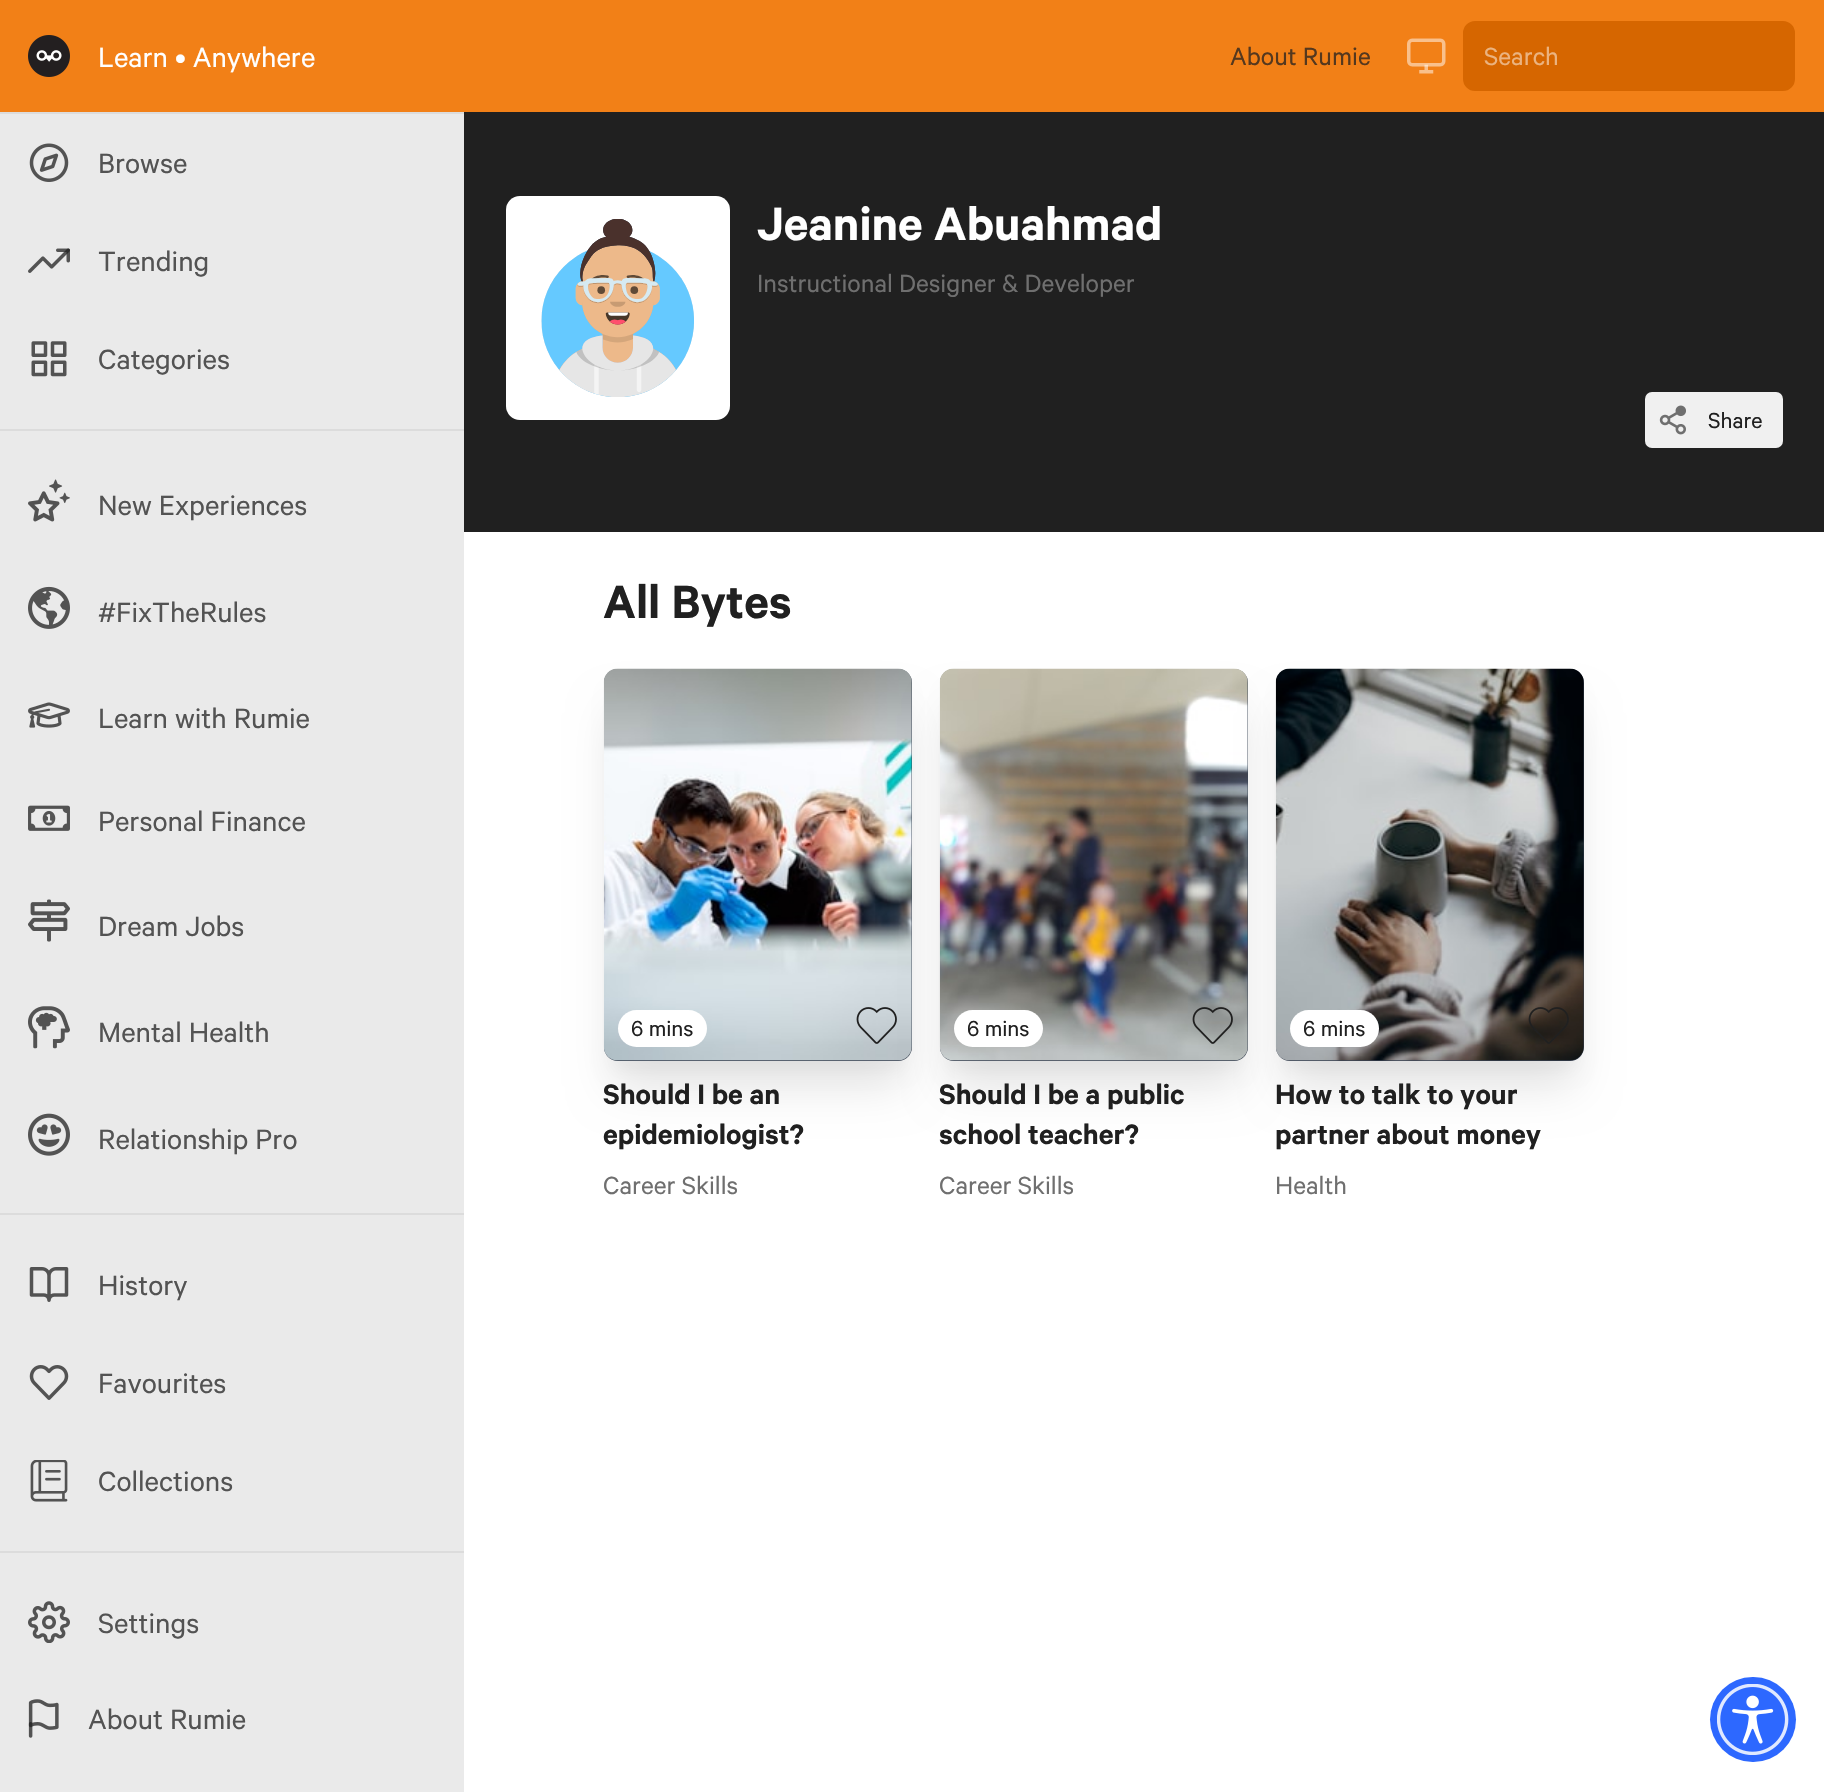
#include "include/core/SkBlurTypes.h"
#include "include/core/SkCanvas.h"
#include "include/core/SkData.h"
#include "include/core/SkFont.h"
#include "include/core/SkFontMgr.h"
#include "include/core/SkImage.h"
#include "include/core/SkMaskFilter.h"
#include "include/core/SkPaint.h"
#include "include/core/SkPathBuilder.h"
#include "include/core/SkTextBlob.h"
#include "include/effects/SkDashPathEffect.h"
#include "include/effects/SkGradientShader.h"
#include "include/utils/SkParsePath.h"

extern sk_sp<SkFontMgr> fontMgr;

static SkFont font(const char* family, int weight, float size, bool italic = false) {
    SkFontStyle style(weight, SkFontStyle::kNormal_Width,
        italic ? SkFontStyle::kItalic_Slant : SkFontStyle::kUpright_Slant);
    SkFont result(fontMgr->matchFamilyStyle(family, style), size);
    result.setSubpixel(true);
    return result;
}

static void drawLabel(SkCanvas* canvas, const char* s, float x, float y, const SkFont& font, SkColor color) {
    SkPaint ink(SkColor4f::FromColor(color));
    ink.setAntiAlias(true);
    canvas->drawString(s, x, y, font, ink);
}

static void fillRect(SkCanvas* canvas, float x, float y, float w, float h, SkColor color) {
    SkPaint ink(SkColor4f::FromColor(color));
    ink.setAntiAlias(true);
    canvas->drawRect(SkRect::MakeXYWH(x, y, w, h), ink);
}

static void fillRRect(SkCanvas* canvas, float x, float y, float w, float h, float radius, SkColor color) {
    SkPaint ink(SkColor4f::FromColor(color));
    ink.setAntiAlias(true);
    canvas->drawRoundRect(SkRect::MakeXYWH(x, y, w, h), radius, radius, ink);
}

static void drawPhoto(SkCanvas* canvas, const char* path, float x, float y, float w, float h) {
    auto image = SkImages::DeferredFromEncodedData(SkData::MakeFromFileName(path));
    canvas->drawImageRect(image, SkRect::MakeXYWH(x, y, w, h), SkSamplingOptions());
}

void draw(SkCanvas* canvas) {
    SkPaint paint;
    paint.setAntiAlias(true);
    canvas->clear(0xFFFFFFFF);
    fillRect(canvas, 0, 0, 1824, 112, 0xFFF28017);
    drawPhoto(canvas, "assets/img1.png", 28, 35, 42, 42);
    SkFont font1 = font("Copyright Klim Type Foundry", 400, 31.5f);
    drawLabel(canvas, "Learn • Anywhere", 98, 67, font1, 0xFFFFFFFF);
    SkFont font2 = font("Copyright Klim Type Foundry", 400, 28);
    drawLabel(canvas, "About Rumie", 1230, 65, font2, 0xFF55381E);
    drawPhoto(canvas, "assets/img2.png", 1407, 38, 39, 36);
    paint.setColor(0xFFD66600);
    canvas->drawRoundRect(SkRect::MakeXYWH(1462, 20, 334, 72), 13, 13, paint);
    paint.setStroke(true);
    paint.setStrokeWidth(2);
    paint.setColor(0xFFF28017);
    canvas->drawRoundRect(SkRect::MakeXYWH(1462, 20, 334, 72), 13, 13, paint);
    drawLabel(canvas, "Search", 1484, 65, font2, 0xFFEBB380);
    fillRect(canvas, 0, 114, 464, 1678, 0xFFEAEAEA);
    fillRect(canvas, 0, 112, 464, 2, 0xFFDCDCDC);
    drawPhoto(canvas, "assets/img3.png", 29, 143, 40, 39);
    drawLabel(canvas, "Browse", 98, 173, font1, 0xFF535353);
    drawPhoto(canvas, "assets/img4.png", 28, 248, 42, 25);
    drawLabel(canvas, "Trending", 98, 271, font1, 0xFF535353);
    drawPhoto(canvas, "assets/img5.png", 31, 341, 36, 36);
    drawLabel(canvas, "Categories", 98, 369, font1, 0xFF535353);
    fillRect(canvas, 0, 429, 464, 2, 0xFFDCDCDC);
    drawPhoto(canvas, "assets/img6.png", 28, 479, 42, 43);
    drawLabel(canvas, "New Experiences", 98, 515, font1, 0xFF535353);
    drawPhoto(canvas, "assets/img7.png", 28, 586, 42, 43);
    drawLabel(canvas, "#FixTheRules", 98, 622, font1, 0xFF535353);
    drawPhoto(canvas, "assets/img8.png", 28, 702, 42, 26);
    drawLabel(canvas, "Learn with Rumie", 98, 728, font1, 0xFF535353);
    drawPhoto(canvas, "assets/img9.png", 28, 805, 42, 26);
    drawLabel(canvas, "Personal Finance", 98, 831, font1, 0xFF535353);
    drawPhoto(canvas, "assets/img10.png", 28, 899, 42, 43);
    drawLabel(canvas, "Dream Jobs", 98, 936, font1, 0xFF535353);
    drawPhoto(canvas, "assets/img11.png", 28, 1006, 42, 43);
    drawLabel(canvas, "Mental Health", 98, 1042, font1, 0xFF535353);
    drawPhoto(canvas, "assets/img12.png", 28, 1113, 42, 43);
    drawLabel(canvas, "Relationship Pro", 98, 1149, font1, 0xFF535353);
    fillRect(canvas, 0, 1213, 464, 2, 0xFFDCDCDC);
    drawPhoto(canvas, "assets/img13.png", 29, 1267, 40, 35);
    drawLabel(canvas, "History", 98, 1295, font1, 0xFF535353);
    drawPhoto(canvas, "assets/img14.png", 29, 1365, 40, 35);
    drawLabel(canvas, "Favourites", 98, 1393, font1, 0xFF535353);
    drawPhoto(canvas, "assets/img15.png", 30, 1460, 38, 42);
    drawLabel(canvas, "Collections", 98, 1491, font1, 0xFF535353);
    fillRect(canvas, 0, 1551, 464, 2, 0xFFDCDCDC);
    drawPhoto(canvas, "assets/img16.png", 28, 1601, 42, 42);
    drawLabel(canvas, "Settings", 98, 1633, font1, 0xFF535353);
    drawPhoto(canvas, "assets/img17.png", 28, 1699, 31, 39);
    drawLabel(canvas, "About Rumie", 88, 1729, font1, 0xFF535353);
    fillRect(canvas, 464, 112, 1360, 420, 0xFF202020);
    fillRRect(canvas, 506, 196, 224, 224, 14, 0xFFFFFFFF);
    drawPhoto(canvas, "assets/img18.png", 541, 219, 153, 178);
    SkFont font3 = font("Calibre", 600, 52.5f);
    drawLabel(canvas, "Jeanine Abuahmad", 757, 240, font3, 0xFFFFFFFF);
    drawLabel(canvas, "Instructional Designer & Developer", 757, 292, font2, 0xFF6F6F6F);
    fillRRect(canvas, 1645, 392, 138, 56, 7, 0xFFF0F0F0);
    drawPhoto(canvas, "assets/img19.png", 1659, 405, 27, 30);
    SkFont font4 = font("Copyright Klim Type Foundry", 400, 24.5f);
    drawLabel(canvas, "Share", 1708, 428, font4, 0xFF202020);
    drawLabel(canvas, "All Bytes", 603, 618, font3, 0xFF202020);
    paint.setStroke(false);
    paint.setColor(0x0A000000);
    paint.setMaskFilter(SkMaskFilter::MakeBlur(kNormal_SkBlurStyle, 9));
    canvas->drawRoundRect(SkRect::MakeXYWH(613, 695, 290, 374), 5, 5, paint);
    paint.setMaskFilter(nullptr);
    paint.setColor(0x1A000000);
    paint.setMaskFilter(SkMaskFilter::MakeBlur(kNormal_SkBlurStyle, 22));
    canvas->drawRoundRect(SkRect::MakeXYWH(613, 712, 290, 375), 5, 5, paint);
    paint.setMaskFilter(nullptr);
    fillRRect(canvas, 604, 669, 308, 392, 14, 0xFF374151);
    drawPhoto(canvas, "assets/img20.png", 603, 668, 309, 393);
    fillRRect(canvas, 618, 1010, 89, 37, 18.5f, 0xFFFFFFFF);
    drawLabel(canvas, "6 mins", 631, 1036, font4, 0xFF202020);
    drawPhoto(canvas, "assets/img21.png", 856, 1007, 41, 37);
    SkFont font5 = font("Calibre", 600, 31.5f);
    drawLabel(canvas, "Should I be an", 603, 1104, font5, 0xFF202020);
    drawLabel(canvas, "epidemiologist?", 603, 1144, font5, 0xFF202020);
    drawLabel(canvas, "Career Skills", 603, 1194, font2, 0xFF6F6F6F);
    paint.setColor(0x0A000000);
    paint.setMaskFilter(SkMaskFilter::MakeBlur(kNormal_SkBlurStyle, 9));
    canvas->drawRoundRect(SkRect::MakeXYWH(949, 695, 290, 374), 5, 5, paint);
    paint.setMaskFilter(nullptr);
    paint.setColor(0x1A000000);
    paint.setMaskFilter(SkMaskFilter::MakeBlur(kNormal_SkBlurStyle, 22));
    canvas->drawRoundRect(SkRect::MakeXYWH(949, 712, 290, 375), 5, 5, paint);
    paint.setMaskFilter(nullptr);
    fillRRect(canvas, 940, 669, 308, 392, 14, 0xFF374151);
    drawPhoto(canvas, "assets/img22.png", 939, 668, 309, 393);
    fillRRect(canvas, 954, 1010, 89, 37, 18.5f, 0xFFFFFFFF);
    drawLabel(canvas, "6 mins", 967, 1036, font4, 0xFF202020);
    drawPhoto(canvas, "assets/img23.png", 1192, 1007, 41, 37);
    drawLabel(canvas, "Should I be a public", 939, 1104, font5, 0xFF202020);
    drawLabel(canvas, "school teacher?", 939, 1144, font5, 0xFF202020);
    drawLabel(canvas, "Career Skills", 939, 1194, font2, 0xFF6F6F6F);
    paint.setColor(0x0A000000);
    paint.setMaskFilter(SkMaskFilter::MakeBlur(kNormal_SkBlurStyle, 9));
    canvas->drawRoundRect(SkRect::MakeXYWH(1285, 695, 290, 374), 5, 5, paint);
    paint.setMaskFilter(nullptr);
    paint.setColor(0x1A000000);
    paint.setMaskFilter(SkMaskFilter::MakeBlur(kNormal_SkBlurStyle, 22));
    canvas->drawRoundRect(SkRect::MakeXYWH(1285, 712, 290, 375), 5, 5, paint);
    paint.setMaskFilter(nullptr);
    fillRRect(canvas, 1276, 669, 308, 392, 14, 0xFF374151);
    drawPhoto(canvas, "assets/img24.png", 1275, 668, 309, 393);
    fillRRect(canvas, 1290, 1010, 89, 37, 18.5f, 0xFFFFFFFF);
    drawLabel(canvas, "6 mins", 1303, 1036, font4, 0xFF202020);
    drawPhoto(canvas, "assets/img25.png", 1528, 1007, 41, 37);
    drawLabel(canvas, "How to talk to your", 1275, 1104, font5, 0xFF202020);
    drawLabel(canvas, "partner about money", 1275, 1144, font5, 0xFF202020);
    drawLabel(canvas, "Health", 1275, 1194, font2, 0xFF6F6F6F);
    fillRRect(canvas, 1710, 1677, 86, 85, 42.5f, 0xFF2D68FF);
    drawPhoto(canvas, "assets/img26.png", 1717, 1684, 72, 71);
}
